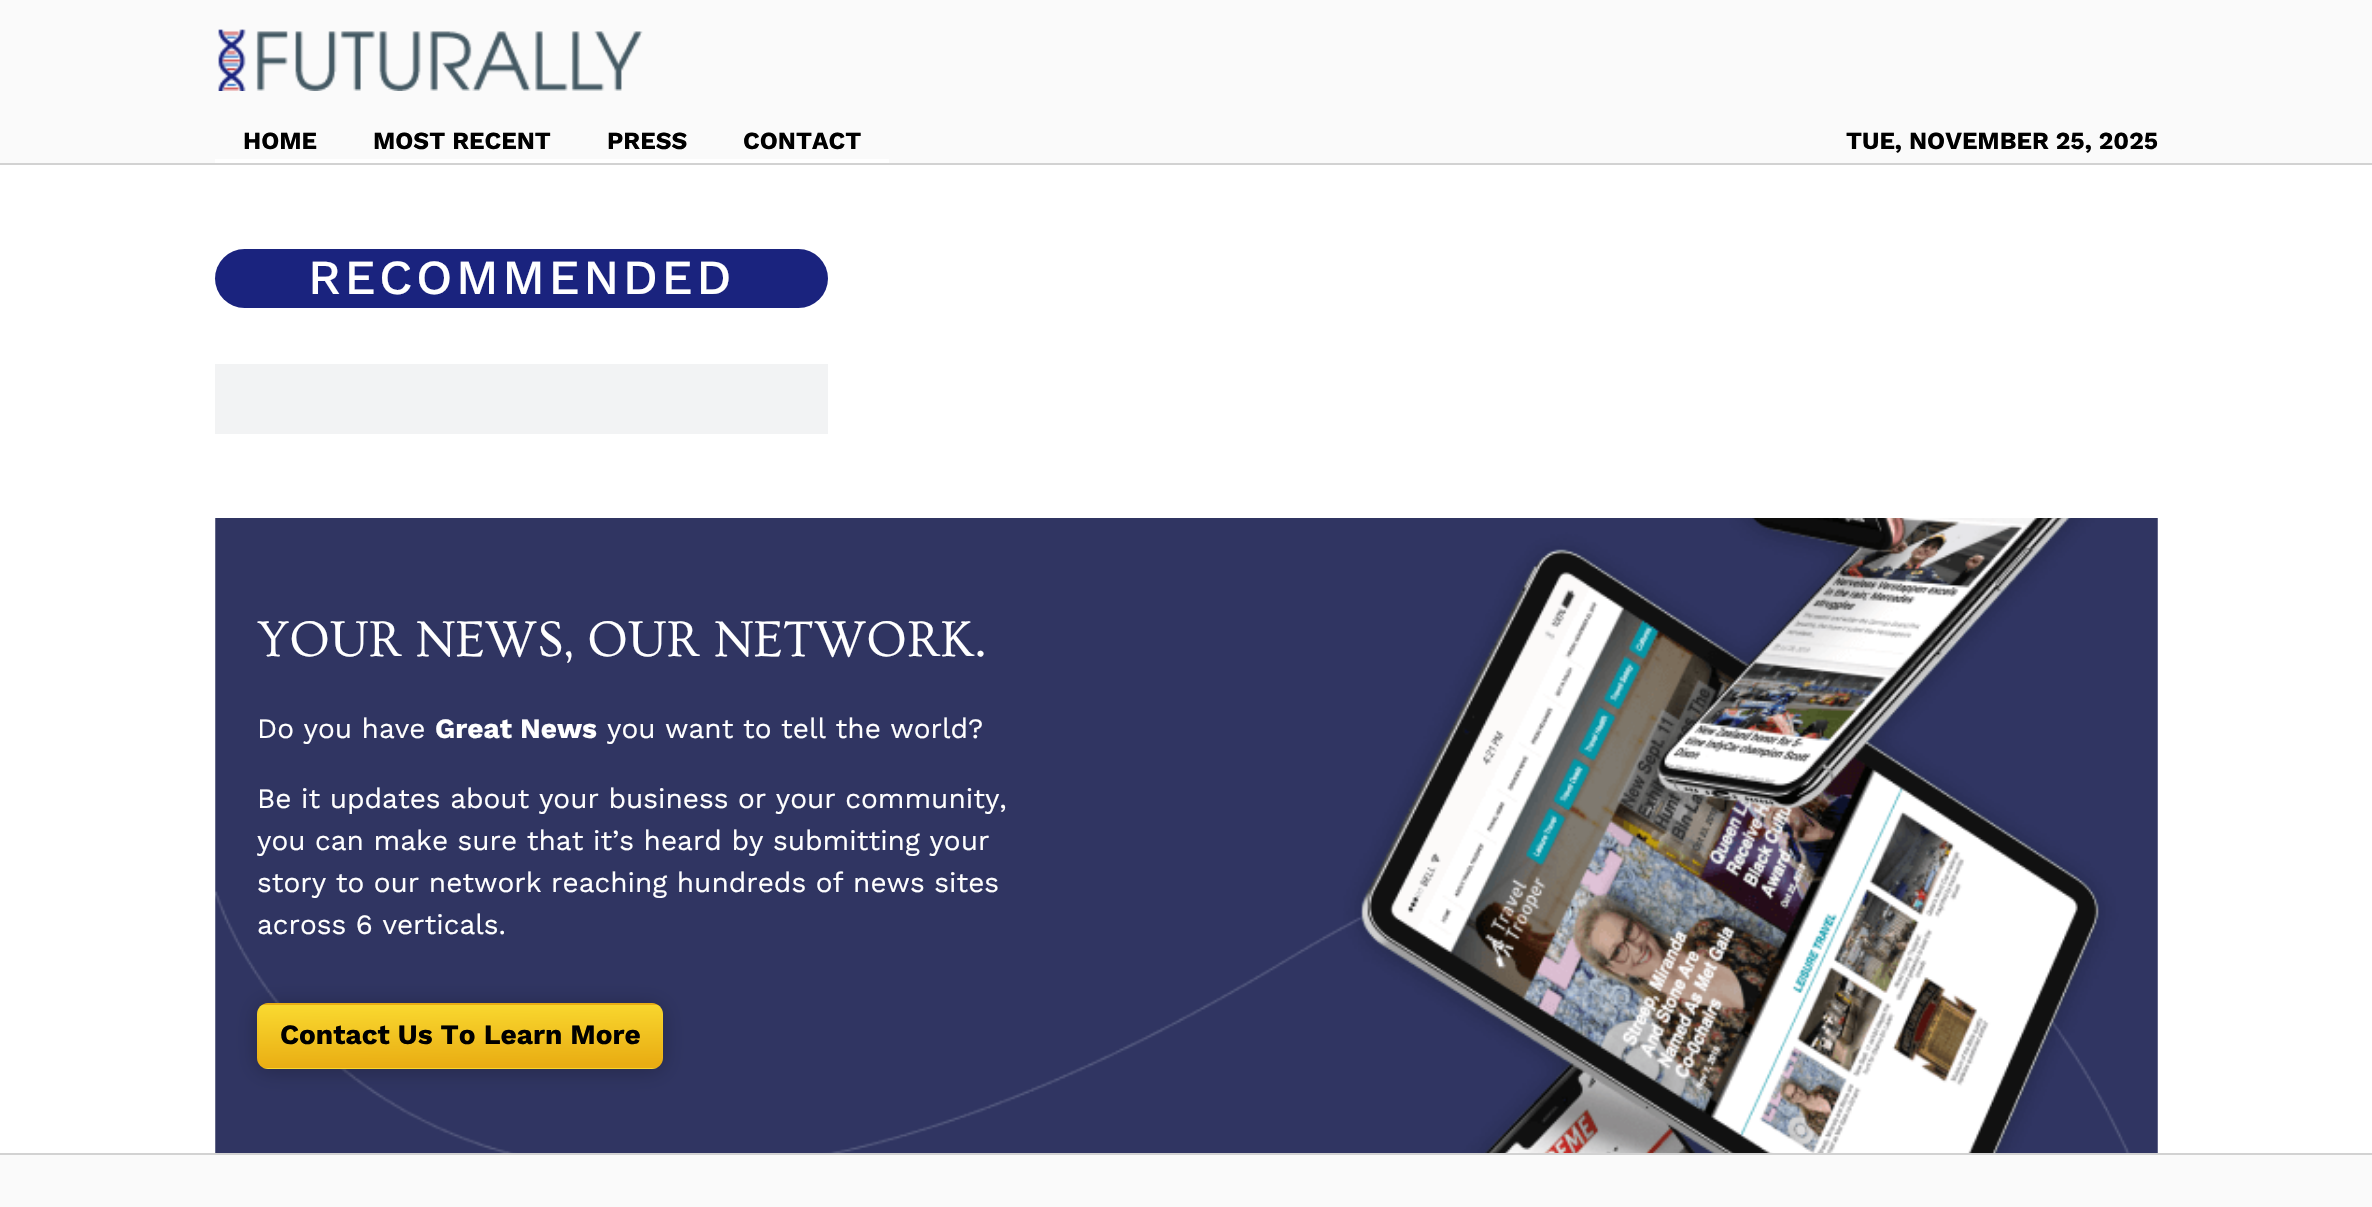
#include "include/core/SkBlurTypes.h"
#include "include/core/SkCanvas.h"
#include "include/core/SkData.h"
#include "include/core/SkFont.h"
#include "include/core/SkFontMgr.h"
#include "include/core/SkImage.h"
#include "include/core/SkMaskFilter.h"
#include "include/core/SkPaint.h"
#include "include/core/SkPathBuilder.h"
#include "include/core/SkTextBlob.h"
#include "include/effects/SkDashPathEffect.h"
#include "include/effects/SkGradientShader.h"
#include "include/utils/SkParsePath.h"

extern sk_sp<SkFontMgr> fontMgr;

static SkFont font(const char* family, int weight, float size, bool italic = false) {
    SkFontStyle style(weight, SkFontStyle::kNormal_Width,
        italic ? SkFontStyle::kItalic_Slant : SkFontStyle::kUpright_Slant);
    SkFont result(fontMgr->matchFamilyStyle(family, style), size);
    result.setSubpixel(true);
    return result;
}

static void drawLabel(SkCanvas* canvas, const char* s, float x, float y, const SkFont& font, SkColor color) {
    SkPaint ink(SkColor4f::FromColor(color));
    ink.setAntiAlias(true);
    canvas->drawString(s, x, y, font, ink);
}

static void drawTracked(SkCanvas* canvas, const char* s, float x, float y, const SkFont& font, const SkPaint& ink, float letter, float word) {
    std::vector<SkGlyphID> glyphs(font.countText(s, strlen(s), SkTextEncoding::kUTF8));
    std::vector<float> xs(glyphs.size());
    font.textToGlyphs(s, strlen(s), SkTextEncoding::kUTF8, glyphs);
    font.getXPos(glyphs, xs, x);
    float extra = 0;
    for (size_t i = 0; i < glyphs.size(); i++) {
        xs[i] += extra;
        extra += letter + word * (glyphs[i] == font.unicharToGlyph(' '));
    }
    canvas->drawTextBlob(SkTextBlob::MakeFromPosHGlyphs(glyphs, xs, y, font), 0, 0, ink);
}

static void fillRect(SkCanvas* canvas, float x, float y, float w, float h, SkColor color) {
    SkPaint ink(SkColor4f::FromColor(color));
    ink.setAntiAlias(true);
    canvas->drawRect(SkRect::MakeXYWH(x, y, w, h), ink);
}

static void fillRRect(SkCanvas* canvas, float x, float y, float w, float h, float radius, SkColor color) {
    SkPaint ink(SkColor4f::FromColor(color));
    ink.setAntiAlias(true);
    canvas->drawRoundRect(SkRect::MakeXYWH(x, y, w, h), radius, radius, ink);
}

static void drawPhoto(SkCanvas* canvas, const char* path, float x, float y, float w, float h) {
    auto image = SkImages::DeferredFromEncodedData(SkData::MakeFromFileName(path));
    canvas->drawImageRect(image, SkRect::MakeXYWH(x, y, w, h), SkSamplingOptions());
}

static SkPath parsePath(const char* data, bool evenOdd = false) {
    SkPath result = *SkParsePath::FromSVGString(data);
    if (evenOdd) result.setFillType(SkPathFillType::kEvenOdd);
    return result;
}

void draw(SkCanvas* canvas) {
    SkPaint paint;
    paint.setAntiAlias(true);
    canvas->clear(0xFFFFFFFF);
    fillRect(canvas, 0, 0, 2372, 163, 0xFFFAFAFA);
    drawPhoto(canvas, "assets/img1.png", 218, 29, 425, 62);
    fillRect(canvas, 0, 163, 2372, 2, 0xFFD2D2D2);
    fillRect(canvas, 215, 159, 674, 4, 0xFFFFFFFF);
    SkFont font1 = font("Work Sans", 700, 24.5f);
    drawLabel(canvas, "HOME", 243, 149, font1, 0xFF000000);
    drawLabel(canvas, "MOST RECENT", 373, 149, font1, 0xFF000000);
    drawLabel(canvas, "PRESS", 607, 149, font1, 0xFF000000);
    drawLabel(canvas, "CONTACT", 743, 149, font1, 0xFF000000);
    drawLabel(canvas, "TUE, NOVEMBER 25, 2025", 1846, 149, font1, 0xFF000000);
    fillRRect(canvas, 215, 249, 613, 59, 29.5f, 0xFF1A237E);
    SkFont font2 = font("Work Sans", 500, 49);
    paint.setColor(0xFFFFFFFF);
    drawTracked(canvas, "RECOMMENDED", 308, 294, font2, paint, 3.5f, 0);
    fillRect(canvas, 215, 364, 613, 70, 0xFFF2F3F4);
    drawPhoto(canvas, "assets/img2.png", 215, 518, 1943, 635);
    SkFont font3 = font("Ovo", 400, 52.5f);
    drawLabel(canvas, "YOUR NEWS, OUR NETWORK.", 257, 656, font3, 0xFFFFFFFF);
    SkFont font4 = font("Work Sans", 400, 28);
    drawLabel(canvas, "Do you have", 257, 738, font4, 0xFFFFFFFF);
    SkFont font5 = font("Work Sans", 700, 28);
    drawLabel(canvas, "Great News", 435, 738, font5, 0xFFFFFFFF);
    drawLabel(canvas, "you want to tell the world?", 607, 738, font4, 0xFFFFFFFF);
    drawLabel(canvas, "Be it updates about your business or your community,", 257, 808, font4, 0xFFFFFFFF);
    drawLabel(canvas, "you can make sure that it’s heard by submitting your", 257, 850, font4, 0xFFFFFFFF);
    drawLabel(canvas, "story to our network reaching hundreds of news sites", 257, 892, font4, 0xFFFFFFFF);
    drawLabel(canvas, "across 6 verticals.", 257, 934, font4, 0xFFFFFFFF);
    paint.setColor(0x40000000);
    paint.setMaskFilter(SkMaskFilter::MakeBlur(kNormal_SkBlurStyle, 10.5f));
    canvas->drawRoundRect(SkRect::MakeXYWH(257, 1005, 406, 66), 11, 11, paint);
    paint.setMaskFilter(nullptr);
    canvas->save();
    canvas->clipPath(parsePath("M268 1003H652C658 1003 663 1008 663 1014V1058C663 1064 658 1069 652 1069H268C262 1069 257 1064 257 1058V1014C257 1008 262 1003 268 1003Z"), true);
    {
        const SkColor colors[] = {0xFFF9D82F, 0xFFE9AD13};
        const float stops[] = {0.02f, 0.96f};
        const SkPoint ends[] = {{460, 940}, {461, 1006}};
        paint.setShader(SkGradientShader::MakeLinear(ends, colors, stops, 2, SkTileMode::kClamp));
        paint.setAlpha(255);
    }
    canvas->drawRect(SkRect::MakeXYWH(259, 1003, 403, 2), paint);
    {
        const SkColor colors[] = {0xFFF9D82F, 0xFFE9AD13};
        const float stops[] = {0.02f, 0.96f};
        const SkPoint ends[] = {{57, 1003}, {58, 1069}};
        paint.setShader(SkGradientShader::MakeLinear(ends, colors, stops, 2, SkTileMode::kClamp));
        paint.setAlpha(255);
    }
    canvas->drawRect(SkRect::MakeXYWH(257, 1005, 2, 63), paint);
    {
        const SkColor colors[] = {0xFFF9D82F, 0xFFE9AD13};
        const float stops[] = {0.02f, 0.96f};
        const SkPoint ends[] = {{460, 1003}, {461, 1069}};
        paint.setShader(SkGradientShader::MakeLinear(ends, colors, stops, 2, SkTileMode::kClamp));
        paint.setAlpha(255);
    }
    canvas->drawRect(SkRect::MakeXYWH(259, 1005, 403, 63), paint);
    {
        const SkColor colors[] = {0xFFF9D82F, 0xFFE9AD13};
        const float stops[] = {0.02f, 0.96f};
        const SkPoint ends[] = {{862, 1003}, {863, 1069}};
        paint.setShader(SkGradientShader::MakeLinear(ends, colors, stops, 2, SkTileMode::kClamp));
        paint.setAlpha(255);
    }
    canvas->drawRect(SkRect::MakeXYWH(662, 1005, 1, 63), paint);
    {
        const SkColor colors[] = {0xFFF9D82F, 0xFFE9AD13};
        const float stops[] = {0.02f, 0.96f};
        const SkPoint ends[] = {{460, 1066}, {461, 1132}};
        paint.setShader(SkGradientShader::MakeLinear(ends, colors, stops, 2, SkTileMode::kClamp));
        paint.setAlpha(255);
    }
    canvas->drawRect(SkRect::MakeXYWH(259, 1068, 403, 1), paint);
    canvas->restore();
    drawLabel(canvas, "Contact Us To Learn More", 280, 1044, font5, 0xFF000000);
    fillRect(canvas, 0, 1155, 2372, 52, 0xFFFAFAFA);
    fillRect(canvas, 0, 1153, 2372, 2, 0xFFD2D2D2);
}
